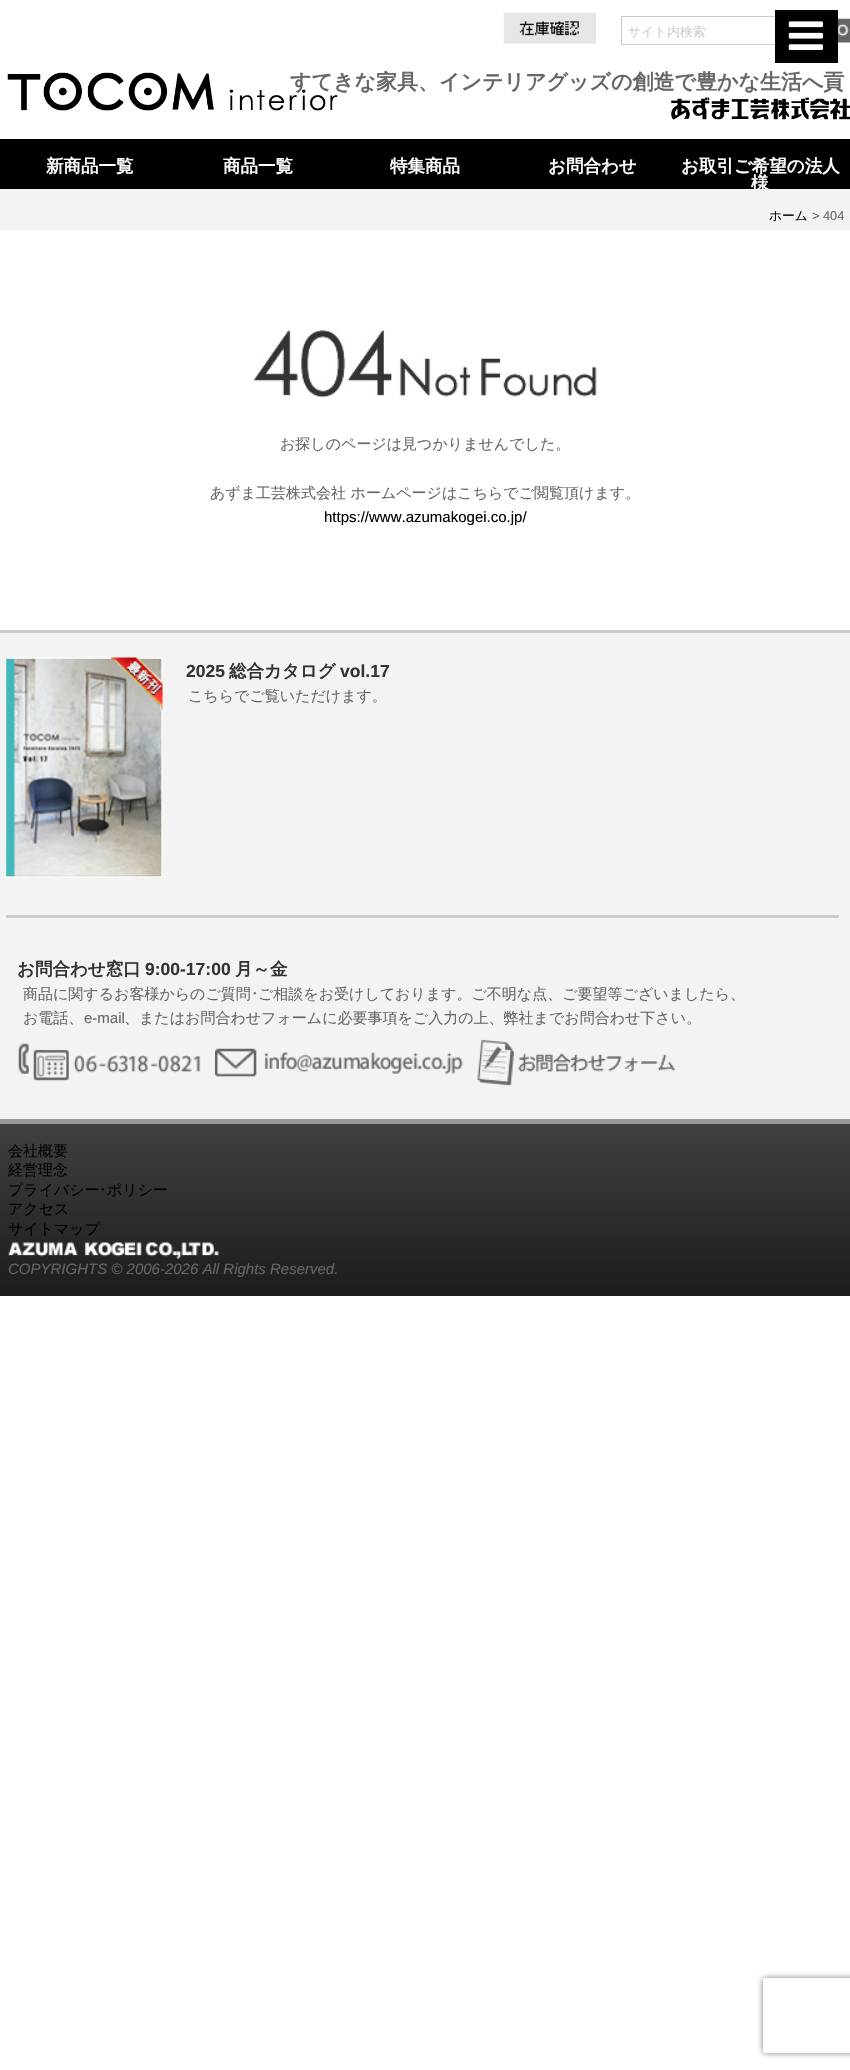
#include "include/core/SkBlurTypes.h"
#include "include/core/SkCanvas.h"
#include "include/core/SkData.h"
#include "include/core/SkFont.h"
#include "include/core/SkFontMgr.h"
#include "include/core/SkImage.h"
#include "include/core/SkMaskFilter.h"
#include "include/core/SkPaint.h"
#include "include/core/SkPathBuilder.h"
#include "include/core/SkTextBlob.h"
#include "include/effects/SkDashPathEffect.h"
#include "include/effects/SkGradientShader.h"
#include "include/utils/SkParsePath.h"

extern sk_sp<SkFontMgr> fontMgr;

static SkFont font(const char* family, int weight, float size, bool italic = false) {
    SkFontStyle style(weight, SkFontStyle::kNormal_Width,
        italic ? SkFontStyle::kItalic_Slant : SkFontStyle::kUpright_Slant);
    SkFont result(fontMgr->matchFamilyStyle(family, style), size);
    result.setSubpixel(true);
    return result;
}

static void drawLabel(SkCanvas* canvas, const char* s, float x, float y, const SkFont& font, SkColor color) {
    SkPaint ink(SkColor4f::FromColor(color));
    ink.setAntiAlias(true);
    canvas->drawString(s, x, y, font, ink);
}

static void fillRect(SkCanvas* canvas, float x, float y, float w, float h, SkColor color) {
    SkPaint ink(SkColor4f::FromColor(color));
    ink.setAntiAlias(true);
    canvas->drawRect(SkRect::MakeXYWH(x, y, w, h), ink);
}

static void drawPhoto(SkCanvas* canvas, const char* path, float x, float y, float w, float h) {
    auto image = SkImages::DeferredFromEncodedData(SkData::MakeFromFileName(path));
    canvas->drawImageRect(image, SkRect::MakeXYWH(x, y, w, h), SkSamplingOptions());
}

static SkPath parsePath(const char* data, bool evenOdd = false) {
    SkPath result = *SkParsePath::FromSVGString(data);
    if (evenOdd) result.setFillType(SkPathFillType::kEvenOdd);
    return result;
}

void draw(SkCanvas* canvas) {
    SkPaint paint;
    paint.setAntiAlias(true);
    canvas->clear(0xFFFFFFFF);
    paint.setStroke(true);
    paint.setStrokeWidth(1);
    paint.setColor(0xFFCCCCCC);
    canvas->drawRect(SkRect::MakeXYWH(621.5f, 16.5f, 194, 28), paint);
    fillRect(canvas, 775, 10, 63, 53, 0xFF000000);
    drawPhoto(canvas, "assets/img1.png", 788, 21, 36, 29);
    drawPhoto(canvas, "assets/img2.png", 503, 12, 94, 32);
    SkFont font1 = font("WenQuanYi Zen Hei", 500, 12.75f);
    drawLabel(canvas, "サイト内検索", 628, 36, font1, 0xFFCCCCCC);
    drawPhoto(canvas, "assets/img3.png", 838, 18, 12, 25);
    drawPhoto(canvas, "assets/img4.png", 7, 72, 331, 39);
    SkFont font2 = font("WenQuanYi Zen Hei", 700, 21);
    drawLabel(canvas, "すてきな家具、インテリアグッズの創造で豊かな生活へ貢", 290, 89, font2, 0xFF666666);
    drawPhoto(canvas, "assets/img5.png", 671, 97, 179, 23);
    fillRect(canvas, 0, 139, 850, 50, 0xFF000000);
    SkFont font3 = font("WenQuanYi Zen Hei", 700, 17.5f);
    drawLabel(canvas, "新商品一覧", 46, 172, font3, 0xFFFFFFFF);
    drawLabel(canvas, "商品一覧", 223, 172, font3, 0xFFFFFFFF);
    drawLabel(canvas, "特集商品", 390, 172, font3, 0xFFFFFFFF);
    drawLabel(canvas, "お問合わせ", 548, 172, font3, 0xFFFFFFFF);
    drawLabel(canvas, "お取引ご希望の法人", 681, 172, font3, 0xFFFFFFFF);
    fillRect(canvas, 0, 189, 850, 41, 0xFFF3F3F3);
    drawLabel(canvas, "様", 751, 189, font3, 0xFFFFFFFF);
    drawLabel(canvas, "ホーム", 769, 220, font1, 0xFF000000);
    SkFont font4 = font("Liberation Sans", 400, 12.75f);
    drawLabel(canvas, "> 404", 812, 220, font4, 0xFF666666);
    drawPhoto(canvas, "assets/img6.png", 253, 329, 344, 69);
    SkFont font5 = font("WenQuanYi Zen Hei", 500, 15);
    drawLabel(canvas, "お探しのページは見つかりませんでした。", 280, 449, font5, 0xFF666666);
    drawLabel(canvas, "あずま工芸株式会社 ホームページはこちらでご閲覧頂けます。", 210, 498, font5, 0xFF666666);
    SkFont font6 = font("Liberation Sans", 400, 15);
    drawLabel(canvas, "https://www.azumakogei.co.jp/", 324, 522, font6, 0xFF000000);
    fillRect(canvas, 0, 633, 850, 486, 0xFFF3F3F3);
    fillRect(canvas, 0, 630, 850, 3, 0xFFCACACA);
    fillRect(canvas, 6, 915, 833, 3, 0xFFCCCCCC);
    drawPhoto(canvas, "assets/img7.png", 6, 657, 157, 221);
    SkFont font7 = font("Liberation Sans", 700, 17.5f);
    drawLabel(canvas, "2025", 186, 677, font7, 0xFF333333);
    drawLabel(canvas, "総合カタログ", 229, 677, font3, 0xFF333333);
    drawLabel(canvas, "vol.17", 340, 677, font7, 0xFF333333);
    drawLabel(canvas, "こちらでご覧いただけます。", 188, 701, font5, 0xFF666666);
    drawLabel(canvas, "お問合わせ窓口", 17, 975, font3, 0xFF333333);
    drawLabel(canvas, "9:00-17:00", 145, 975, font7, 0xFF333333);
    drawLabel(canvas, "月～金", 235, 975, font3, 0xFF333333);
    drawLabel(canvas, "商品に関するお客様からのご質問", 23, 999, font5, 0xFF666666);
    SkFont font8 = font("IPAPGothic", 400, 15);
    drawLabel(canvas, "･", 251, 999, font8, 0xFF666666);
    drawLabel(canvas, "ご相談をお受けしております。ご不明な点、ご要望等ございましたら、", 258, 999, font5, 0xFF666666);
    drawLabel(canvas, "お電話、", 23, 1023, font5, 0xFF666666);
    drawLabel(canvas, "e-mail", 84, 1023, font6, 0xFF666666);
    drawLabel(canvas, "、またはお問合わせフォームに必要事項をご入力の上、弊社までお問合わせ下さい。", 124, 1023, font5, 0xFF666666);
    drawPhoto(canvas, "assets/img8.png", 18, 1043, 183, 39);
    drawPhoto(canvas, "assets/img9.png", 215, 1048, 248, 29);
    drawPhoto(canvas, "assets/img10.png", 477, 1039, 199, 47);
    paint.setStroke(false);
    {
        const SkColor colors[] = {0xFF404040, 0xFF1C1C1C};
        const float stops[] = {0, 1};
        const SkPoint ends[] = {{425, 1124}, {425, 1296}};
        paint.setShader(SkGradientShader::MakeLinear(ends, colors, stops, 2, SkTileMode::kClamp));
        paint.setAlpha(255);
    }
    canvas->drawRect(SkRect::MakeXYWH(0, 1124, 850, 172), paint);
    fillRect(canvas, 0, 1119, 850, 5, 0xFF999999);
    drawLabel(canvas, "会社概要", 8, 1156, font5, 0xFF000000);
    drawLabel(canvas, "経営理念", 8, 1175, font5, 0xFF000000);
    drawLabel(canvas, "プライバシー", 8, 1195, font5, 0xFF000000);
    drawLabel(canvas, "･", 99, 1195, font8, 0xFF000000);
    drawLabel(canvas, "ポリシー", 107, 1195, font5, 0xFF000000);
    drawLabel(canvas, "アクセス", 8, 1214, font5, 0xFF000000);
    drawLabel(canvas, "サイトマップ", 8, 1234, font5, 0xFF000000);
    drawPhoto(canvas, "assets/img11.png", 8, 1242, 211, 17);
    SkFont font9 = font("Liberation Sans", 400, 15, true);
    drawLabel(canvas, "COPYRIGHTS © 2006-2026 All Rights Reserved.", 8, 1274, font9, 0xFF666666);
    canvas->save();
    canvas->clipPath(parsePath("M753 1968H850V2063H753ZM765.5 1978H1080.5C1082 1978 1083 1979 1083 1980.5V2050.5C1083 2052 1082 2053 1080.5 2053H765.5C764 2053 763 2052 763 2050.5V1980.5C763 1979 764 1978 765.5 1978Z", true), true);
    paint.setShader(nullptr);
    paint.setColor(0xFF808080);
    paint.setMaskFilter(SkMaskFilter::MakeBlur(kNormal_SkBlurStyle, 3));
    canvas->drawRoundRect(SkRect::MakeXYWH(763, 1978, 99, 75), 2.5f, 2.5f, paint);
    paint.setMaskFilter(nullptr);
    canvas->restore();
}
